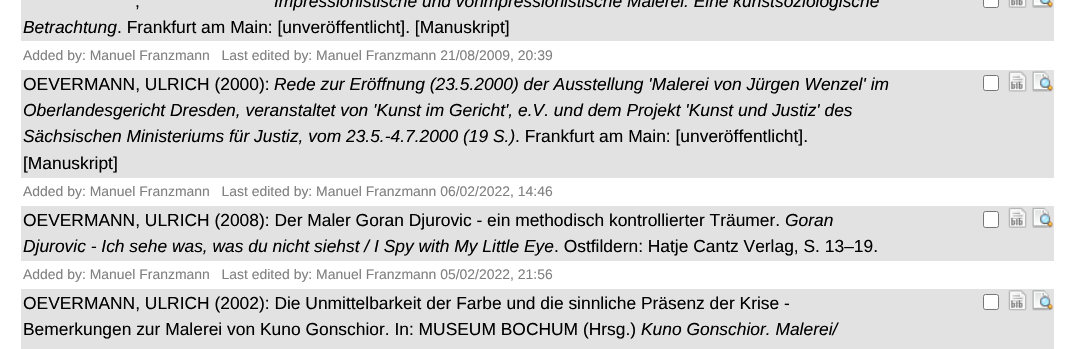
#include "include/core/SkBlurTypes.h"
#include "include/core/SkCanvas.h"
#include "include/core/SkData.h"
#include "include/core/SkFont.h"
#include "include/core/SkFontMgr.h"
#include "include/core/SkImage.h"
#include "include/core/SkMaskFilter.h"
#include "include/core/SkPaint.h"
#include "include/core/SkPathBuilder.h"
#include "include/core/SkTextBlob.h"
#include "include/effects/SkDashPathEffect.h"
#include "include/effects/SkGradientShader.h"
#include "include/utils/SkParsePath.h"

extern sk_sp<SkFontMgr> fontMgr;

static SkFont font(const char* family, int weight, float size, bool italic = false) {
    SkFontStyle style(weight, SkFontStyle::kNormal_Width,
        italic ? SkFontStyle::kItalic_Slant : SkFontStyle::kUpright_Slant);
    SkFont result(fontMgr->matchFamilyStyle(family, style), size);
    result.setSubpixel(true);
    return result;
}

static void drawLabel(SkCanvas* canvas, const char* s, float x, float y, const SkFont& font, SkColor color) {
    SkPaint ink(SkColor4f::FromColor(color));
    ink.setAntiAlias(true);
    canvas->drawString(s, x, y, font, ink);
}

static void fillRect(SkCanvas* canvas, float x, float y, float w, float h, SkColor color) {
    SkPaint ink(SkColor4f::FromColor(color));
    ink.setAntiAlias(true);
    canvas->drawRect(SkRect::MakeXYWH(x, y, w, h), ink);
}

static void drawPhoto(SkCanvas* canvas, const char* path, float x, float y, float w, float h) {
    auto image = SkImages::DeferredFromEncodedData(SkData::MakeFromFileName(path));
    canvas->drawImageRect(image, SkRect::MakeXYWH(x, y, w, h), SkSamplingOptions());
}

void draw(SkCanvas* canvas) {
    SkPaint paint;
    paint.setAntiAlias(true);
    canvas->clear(0xFFFFFFFF);
    fillRect(canvas, 21, 0, 1033, 41, 0xFFE2E2E2);
    SkFont font1 = font("Liberation Sans", 400, 17.4f);
    drawLabel(canvas, ",", 135, 7, font1, 0xFF000000);
    SkFont font2 = font("Liberation Sans", 400, 17.4f, true);
    drawLabel(canvas, "Impressionistische und vorimpressionistische Malerei: Eine kunstsoziologische", 274, 7, font2, 0xFF000000);
    drawLabel(canvas, "Betrachtung", 23, 33, font2, 0xFF000000);
    drawLabel(canvas, ". Frankfurt am Main: [unveröffentlicht]. [Manuskript]", 117, 33, font1, 0xFF000000);
    paint.setColor(0xFFFFFFFF);
    canvas->drawRoundRect(SkRect::MakeXYWH(983.5f, -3.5f, 15, 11), 2, 2, paint);
    paint.setStroke(true);
    paint.setStrokeWidth(1);
    paint.setColor(0xFF767676);
    canvas->drawRoundRect(SkRect::MakeXYWH(983.5f, -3.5f, 15, 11), 2, 2, paint);
    drawPhoto(canvas, "assets/img1.png", 1008, 0, 19, 8);
    drawPhoto(canvas, "assets/img2.png", 1032, 0, 21, 8);
    SkFont font3 = font("Liberation Sans", 400, 13.95f);
    drawLabel(canvas, "Added by: Manuel Franzmann   Last edited by: Manuel Franzmann 21/08/2009, 20:39", 23, 60, font3, 0xFF808080);
    fillRect(canvas, 21, 70, 1033, 108, 0xFFE2E2E2);
    drawLabel(canvas, "OEVERMANN, ULRICH (2000):", 23, 90, font1, 0xFF000000);
    drawLabel(canvas, "Rede zur Eröffnung (23.5.2000) der Ausstellung 'Malerei von Jürgen Wenzel' im", 274, 90, font2, 0xFF000000);
    drawLabel(canvas, "Oberlandesgericht Dresden, veranstaltet von 'Kunst im Gericht', e.V. und dem Projekt 'Kunst und Justiz' des", 23, 116, font2, 0xFF000000);
    drawLabel(canvas, "Sächsischen Ministeriums für Justiz, vom 23.5.-4.7.2000 (19 S.)", 23, 142, font2, 0xFF000000);
    drawLabel(canvas, ". Frankfurt am Main: [unveröffentlicht].", 515, 142, font1, 0xFF000000);
    drawLabel(canvas, "[Manuskript]", 23, 169, font1, 0xFF000000);
    paint.setStroke(false);
    paint.setColor(0xFFFFFFFF);
    canvas->drawRoundRect(SkRect::MakeXYWH(983.5f, 75.5f, 15, 15), 2, 2, paint);
    paint.setStroke(true);
    paint.setColor(0xFF767676);
    canvas->drawRoundRect(SkRect::MakeXYWH(983.5f, 75.5f, 15, 15), 2, 2, paint);
    drawPhoto(canvas, "assets/img3.png", 1008, 71, 19, 21);
    drawPhoto(canvas, "assets/img4.png", 1032, 71, 21, 21);
    drawLabel(canvas, "Added by: Manuel Franzmann   Last edited by: Manuel Franzmann 06/02/2022, 14:46", 23, 196, font3, 0xFF808080);
    fillRect(canvas, 21, 206, 1033, 55, 0xFFE2E2E2);
    drawLabel(canvas, "OEVERMANN, ULRICH (2008): Der Maler Goran Djurovic - ein methodisch kontrollierter Träumer.", 23, 226, font1, 0xFF000000);
    drawLabel(canvas, "Goran", 785, 226, font2, 0xFF000000);
    drawLabel(canvas, "Djurovic - Ich sehe was, was du nicht siehst / I Spy with My Little Eye", 23, 252, font2, 0xFF000000);
    drawLabel(canvas, ". Ostfildern: Hatje Cantz Verlag, S. 13–19.", 554, 252, font1, 0xFF000000);
    paint.setStroke(false);
    paint.setColor(0xFFFFFFFF);
    canvas->drawRoundRect(SkRect::MakeXYWH(983.5f, 211.5f, 15, 16), 2, 2, paint);
    paint.setStroke(true);
    paint.setColor(0xFF767676);
    canvas->drawRoundRect(SkRect::MakeXYWH(983.5f, 211.5f, 15, 16), 2, 2, paint);
    drawPhoto(canvas, "assets/img5.png", 1008, 207, 19, 21);
    drawPhoto(canvas, "assets/img6.png", 1032, 207, 21, 21);
    drawLabel(canvas, "Added by: Manuel Franzmann   Last edited by: Manuel Franzmann 05/02/2022, 21:56", 23, 279, font3, 0xFF808080);
    fillRect(canvas, 21, 289, 1033, 60, 0xFFE2E2E2);
    drawLabel(canvas, "OEVERMANN, ULRICH (2002): Die Unmittelbarkeit der Farbe und die sinnliche Präsenz der Krise -", 23, 309, font1, 0xFF000000);
    drawLabel(canvas, "Bemerkungen zur Malerei von Kuno Gonschior. In: MUSEUM BOCHUM (Hrsg.)", 23, 335, font1, 0xFF000000);
    drawLabel(canvas, "Kuno Gonschior. Malerei/", 641, 335, font2, 0xFF000000);
    paint.setStroke(false);
    paint.setColor(0xFFFFFFFF);
    canvas->drawRoundRect(SkRect::MakeXYWH(983.5f, 294.5f, 15, 15), 2, 2, paint);
    paint.setStroke(true);
    paint.setColor(0xFF767676);
    canvas->drawRoundRect(SkRect::MakeXYWH(983.5f, 294.5f, 15, 15), 2, 2, paint);
    drawPhoto(canvas, "assets/img7.png", 1008, 290, 19, 21);
    drawPhoto(canvas, "assets/img8.png", 1032, 290, 21, 21);
}
